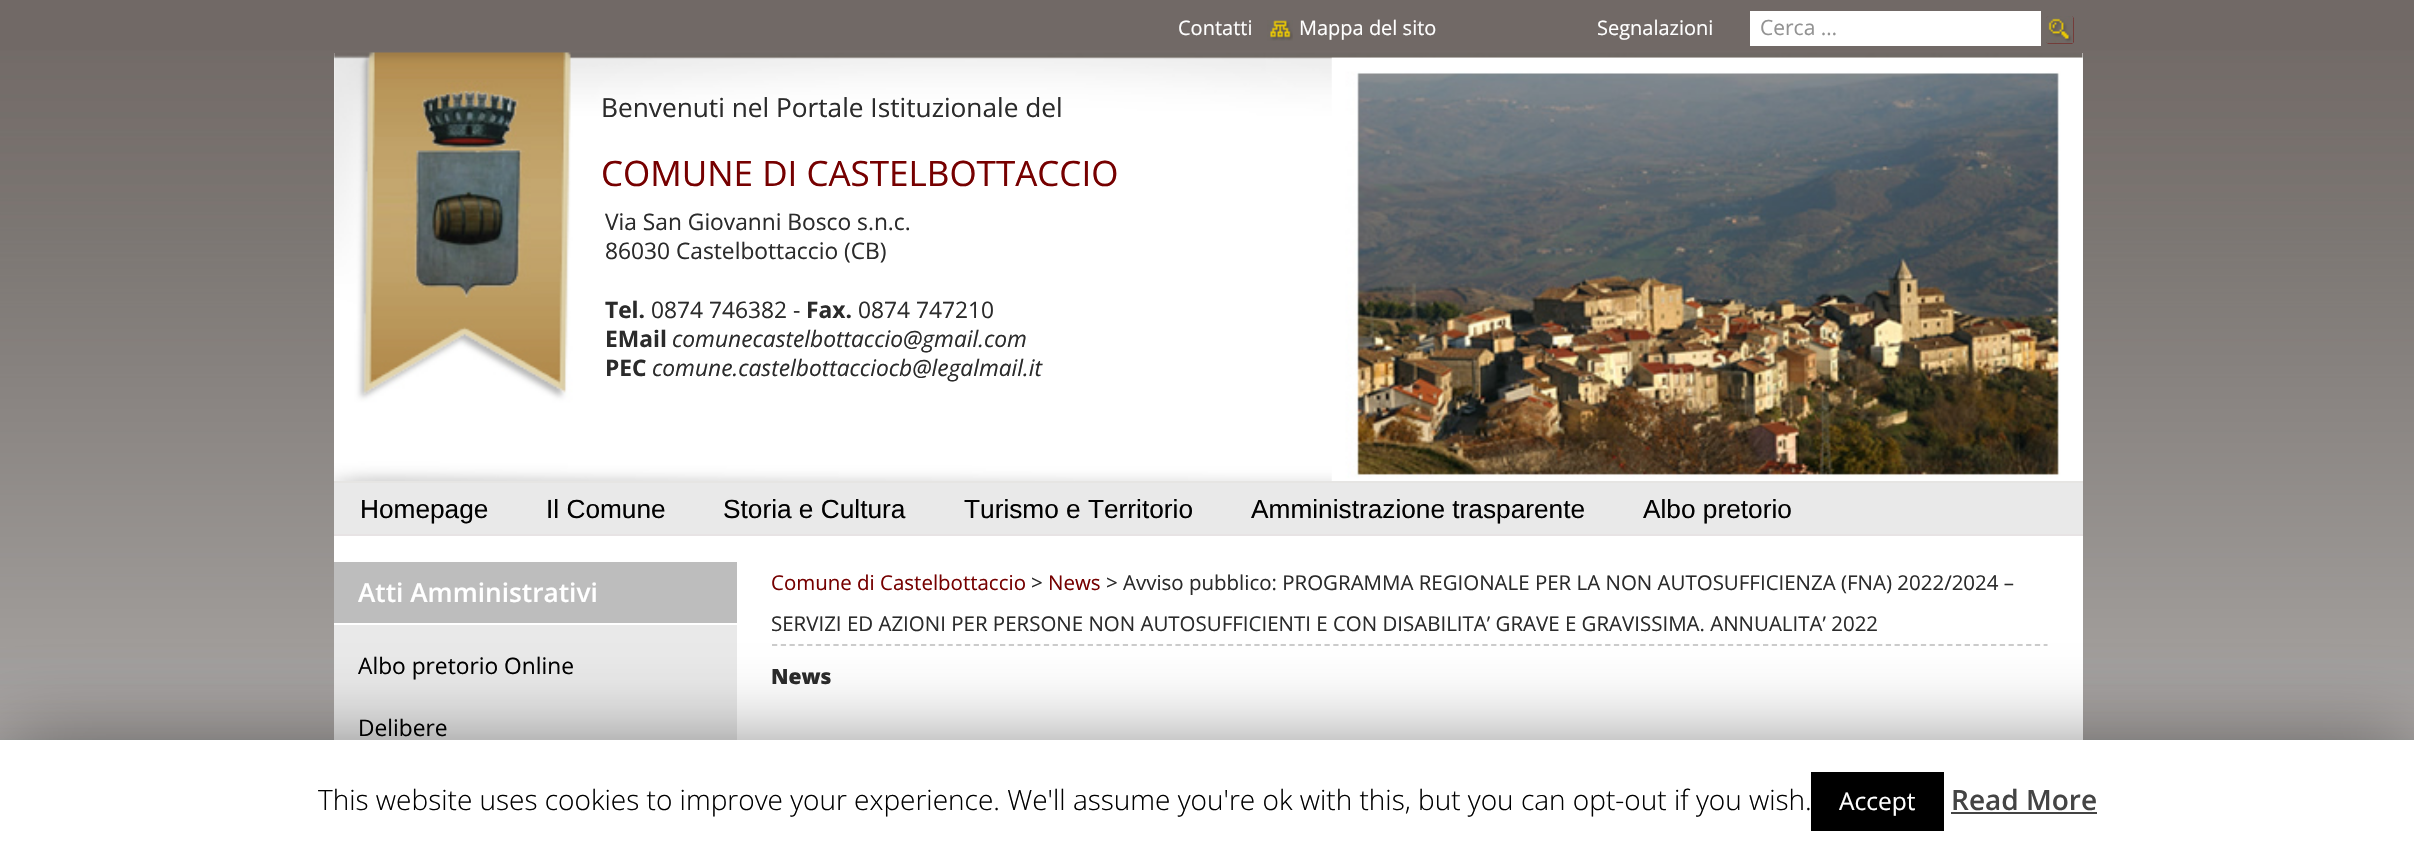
#include "include/core/SkBlurTypes.h"
#include "include/core/SkCanvas.h"
#include "include/core/SkData.h"
#include "include/core/SkFont.h"
#include "include/core/SkFontMgr.h"
#include "include/core/SkImage.h"
#include "include/core/SkMaskFilter.h"
#include "include/core/SkPaint.h"
#include "include/core/SkPathBuilder.h"
#include "include/core/SkTextBlob.h"
#include "include/effects/SkDashPathEffect.h"
#include "include/effects/SkGradientShader.h"
#include "include/utils/SkParsePath.h"

extern sk_sp<SkFontMgr> fontMgr;

static SkFont font(const char* family, int weight, float size, bool italic = false) {
    SkFontStyle style(weight, SkFontStyle::kNormal_Width,
        italic ? SkFontStyle::kItalic_Slant : SkFontStyle::kUpright_Slant);
    SkFont result(fontMgr->matchFamilyStyle(family, style), size);
    result.setSubpixel(true);
    return result;
}

static void drawLabel(SkCanvas* canvas, const char* s, float x, float y, const SkFont& font, SkColor color) {
    SkPaint ink(SkColor4f::FromColor(color));
    ink.setAntiAlias(true);
    canvas->drawString(s, x, y, font, ink);
}

static void fillRect(SkCanvas* canvas, float x, float y, float w, float h, SkColor color) {
    SkPaint ink(SkColor4f::FromColor(color));
    ink.setAntiAlias(true);
    canvas->drawRect(SkRect::MakeXYWH(x, y, w, h), ink);
}

static void fillRRect(SkCanvas* canvas, float x, float y, float w, float h, float radius, SkColor color) {
    SkPaint ink(SkColor4f::FromColor(color));
    ink.setAntiAlias(true);
    canvas->drawRoundRect(SkRect::MakeXYWH(x, y, w, h), radius, radius, ink);
}

static void drawPhoto(SkCanvas* canvas, const char* path, float x, float y, float w, float h) {
    auto image = SkImages::DeferredFromEncodedData(SkData::MakeFromFileName(path));
    canvas->drawImageRect(image, SkRect::MakeXYWH(x, y, w, h), SkSamplingOptions());
}

static SkPath parsePath(const char* data, bool evenOdd = false) {
    SkPath result = *SkParsePath::FromSVGString(data);
    if (evenOdd) result.setFillType(SkPathFillType::kEvenOdd);
    return result;
}

void draw(SkCanvas* canvas) {
    SkPaint paint;
    paint.setAntiAlias(true);
    canvas->clear(0xFFFFFFFF);
    drawPhoto(canvas, "assets/img1.png", 0, 0, 2414, 740);
    SkFont font1 = font("Open Sans", 400, 20);
    drawLabel(canvas, "Contatti", 1178, 35, font1, 0xFFFFFFFF);
    drawPhoto(canvas, "assets/img2.png", 1267, 20, 26, 21);
    drawLabel(canvas, "Mappa del sito", 1299, 35, font1, 0xFFFFFFFF);
    drawLabel(canvas, "Segnalazioni", 1597, 35, font1, 0xFFFFFFFF);
    fillRect(canvas, 1750, 11, 291, 35, 0xFFFFFFFF);
    SkFont font2 = font("Open Sans", 400, 21);
    drawLabel(canvas, "Cerca …", 1760, 35, font2, 0xFF939393);
    fillRRect(canvas, 2046, 16, 28, 28, 4, 0xFF760000);
    drawPhoto(canvas, "assets/img3.png", 2046, 16, 28, 28);
    fillRect(canvas, 334, 53, 1749, 687, 0xFFFFFFFF);
    drawPhoto(canvas, "assets/img4.png", 334, 52, 1749, 429);
    drawPhoto(canvas, "assets/img5.png", 1331, 57, 752, 424);
    drawPhoto(canvas, "assets/img6.png", 377, 80, 154, 219);
    SkFont font3 = font("Open Sans", 400, 26.25f);
    drawLabel(canvas, "Benvenuti nel Portale Istituzionale del", 601, 117, font3, 0xFF2B2B2B);
    SkFont font4 = font("Open Sans", 400, 35);
    drawLabel(canvas, "COMUNE DI CASTELBOTTACCIO", 601, 186, font4, 0xFF760000);
    SkFont font5 = font("Open Sans", 400, 22.75f);
    drawLabel(canvas, "Via San Giovanni Bosco s.n.c.", 605, 230, font5, 0xFF2B2B2B);
    drawLabel(canvas, "86030 Castelbottaccio (CB)", 605, 259, font5, 0xFF2B2B2B);
    SkFont font6 = font("Open Sans", 700, 22.75f);
    drawLabel(canvas, "Tel.", 605, 318, font6, 0xFF2B2B2B);
    drawLabel(canvas, "0874 746382 -", 651, 318, font5, 0xFF2B2B2B);
    drawLabel(canvas, "Fax.", 806, 318, font6, 0xFF2B2B2B);
    drawLabel(canvas, "0874 747210", 858, 318, font5, 0xFF2B2B2B);
    drawLabel(canvas, "EMail", 605, 347, font6, 0xFF2B2B2B);
    SkFont font7 = font("Open Sans", 400, 22.75f, true);
    drawLabel(canvas, "comunecastelbottaccio@gmail.com", 672, 347, font7, 0xFF2B2B2B);
    drawLabel(canvas, "PEC", 605, 376, font6, 0xFF2B2B2B);
    drawLabel(canvas, "comune.castelbottacciocb@legalmail.it", 652, 376, font7, 0xFF2B2B2B);
    fillRect(canvas, 334, 483, 1749, 51, 0xFFE9E9E9);
    fillRect(canvas, 334, 481, 1749, 2, 0xFFE6E5E3);
    fillRect(canvas, 334, 534, 1749, 2, 0xFFE7E3E4);
    SkFont font8 = font("Liberation Sans", 400, 26.25f);
    drawLabel(canvas, "Homepage", 360, 518, font8, 0xFF010101);
    drawLabel(canvas, "Il Comune", 546, 518, font8, 0xFF010101);
    drawLabel(canvas, "Storia e Cultura", 723, 518, font8, 0xFF010101);
    drawLabel(canvas, "Turismo e Territorio", 964, 518, font8, 0xFF010101);
    drawLabel(canvas, "Amministrazione trasparente", 1251, 518, font8, 0xFF010101);
    drawLabel(canvas, "Albo pretorio", 1643, 518, font8, 0xFF010101);
    fillRect(canvas, 334, 562, 403, 61, 0xFFBDBDBD);
    SkFont font9 = font("Open Sans", 600, 26.25f);
    drawLabel(canvas, "Atti Amministrativi", 358, 602, font9, 0xFFFFFFFF);
    fillRect(canvas, 334, 625, 403, 115, 0xFFE9E9E9);
    drawLabel(canvas, "Albo pretorio Online", 358, 674, font5, 0xFF010101);
    drawLabel(canvas, "Delibere", 358, 736, font5, 0xFF010101);
    paint.setStroke(true);
    paint.setStrokeWidth(1.8f);
    paint.setColor(0xFFCCCCCC);
    paint.setPathEffect(SkDashPathEffect::Make({{5.25f, 3.52f}}, 0));
    canvas->drawPath(parsePath("M772 645H2047.5"), paint);
    paint.setPathEffect(nullptr);
    SkFont font10 = font("Open Sans", 400, 20.47f);
    drawLabel(canvas, "Comune di Castelbottaccio", 771, 590, font10, 0xFF760000);
    drawLabel(canvas, ">", 1031, 590, font10, 0xFF2B2B2B);
    drawLabel(canvas, "News", 1048, 590, font10, 0xFF760000);
    drawLabel(canvas, "> Avviso pubblico: PROGRAMMA REGIONALE PER LA NON AUTOSUFFICIENZA (FNA) 2022/2024 –", 1106, 590, font10, 0xFF2B2B2B);
    drawLabel(canvas, "SERVIZI ED AZIONI PER PERSONE NON AUTOSUFFICIENTI E CON DISABILITA’ GRAVE E GRAVISSIMA. ANNUALITA’ 2022", 771, 631, font10, 0xFF2B2B2B);
    SkFont font11 = font("Open Sans", 800, 21);
    drawLabel(canvas, "News", 771, 684, font11, 0xFF2B2B2B);
    paint.setStroke(false);
    paint.setColor(0x80000000);
    paint.setMaskFilter(SkMaskFilter::MakeBlur(kNormal_SkBlurStyle, 44));
    canvas->drawRect(SkRect::MakeXYWH(0, 749, 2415, 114), paint);
    paint.setMaskFilter(nullptr);
    fillRect(canvas, 0, 740, 2414, 114, 0xFFFFFFFF);
    SkFont font12 = font("Open Sans", 300, 28);
    drawLabel(canvas, "This website uses cookies to improve your experience. We'll assume you're ok with this, but you can opt-out if you wish.", 318, 810, font12, 0xFF010101);
    fillRect(canvas, 1811, 772, 133, 59, 0xFF000000);
    SkFont font13 = font("Open Sans", 400, 24.5f);
    drawLabel(canvas, "Accept", 1839, 810, font13, 0xFFFFFFFF);
    SkFont font14 = font("Open Sans", 600, 28);
    drawLabel(canvas, "Read More", 1951, 810, font14, 0xFF444444);
    fillRect(canvas, 1951, 812, 146, 2, 0xFF444444);
}
